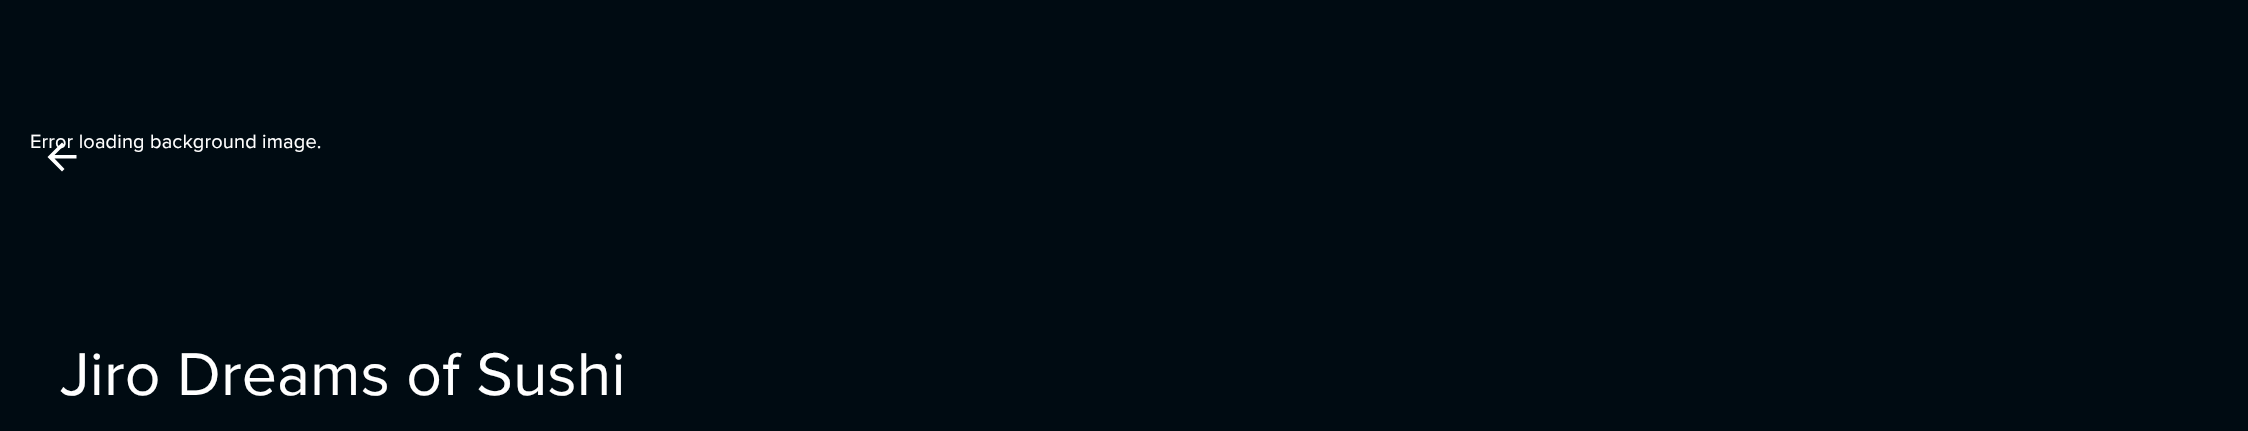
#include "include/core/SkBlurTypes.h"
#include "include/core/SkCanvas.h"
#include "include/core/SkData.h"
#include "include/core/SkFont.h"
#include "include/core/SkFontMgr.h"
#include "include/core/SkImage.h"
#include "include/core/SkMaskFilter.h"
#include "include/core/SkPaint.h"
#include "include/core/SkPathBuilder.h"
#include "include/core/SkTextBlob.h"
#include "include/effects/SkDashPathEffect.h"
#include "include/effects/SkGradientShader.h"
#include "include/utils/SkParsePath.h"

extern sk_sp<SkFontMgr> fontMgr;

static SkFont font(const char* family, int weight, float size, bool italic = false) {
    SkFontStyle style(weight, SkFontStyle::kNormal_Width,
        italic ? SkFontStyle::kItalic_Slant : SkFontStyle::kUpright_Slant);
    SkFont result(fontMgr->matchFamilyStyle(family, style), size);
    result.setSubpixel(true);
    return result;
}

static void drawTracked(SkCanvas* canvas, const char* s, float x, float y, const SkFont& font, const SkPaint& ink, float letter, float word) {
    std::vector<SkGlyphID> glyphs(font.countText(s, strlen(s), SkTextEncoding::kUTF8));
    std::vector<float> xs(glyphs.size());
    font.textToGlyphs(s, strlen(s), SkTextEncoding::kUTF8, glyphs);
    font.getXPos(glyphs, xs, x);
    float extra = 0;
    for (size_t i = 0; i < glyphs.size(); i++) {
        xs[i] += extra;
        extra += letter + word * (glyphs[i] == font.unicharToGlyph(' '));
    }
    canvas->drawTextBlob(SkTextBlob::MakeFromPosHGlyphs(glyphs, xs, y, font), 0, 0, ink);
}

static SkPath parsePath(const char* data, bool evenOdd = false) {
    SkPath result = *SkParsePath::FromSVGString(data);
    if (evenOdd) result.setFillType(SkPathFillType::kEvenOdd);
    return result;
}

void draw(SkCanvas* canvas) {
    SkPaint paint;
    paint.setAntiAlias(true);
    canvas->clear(0xFF000B12);
    SkFont font1 = font("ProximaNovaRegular", 400, 20);
    paint.setColor(0xFFFFFFFF);
    drawTracked(canvas, "Error loading background image.", 30, 148, font1, paint, 0.15f, 0);
    canvas->drawPath(parsePath("M76.5 155H54.5L64.5 145L62 142.5L47.5 157L62 171.5L64.5 169L54.5 158.5H76.5Z"), paint);
    SkFont font2 = font("ProximaNovaRegular", 400, 62.5f);
    drawTracked(canvas, "Jiro Dreams of Sushi", 60, 395, font2, paint, 0.15f, 0);
}
